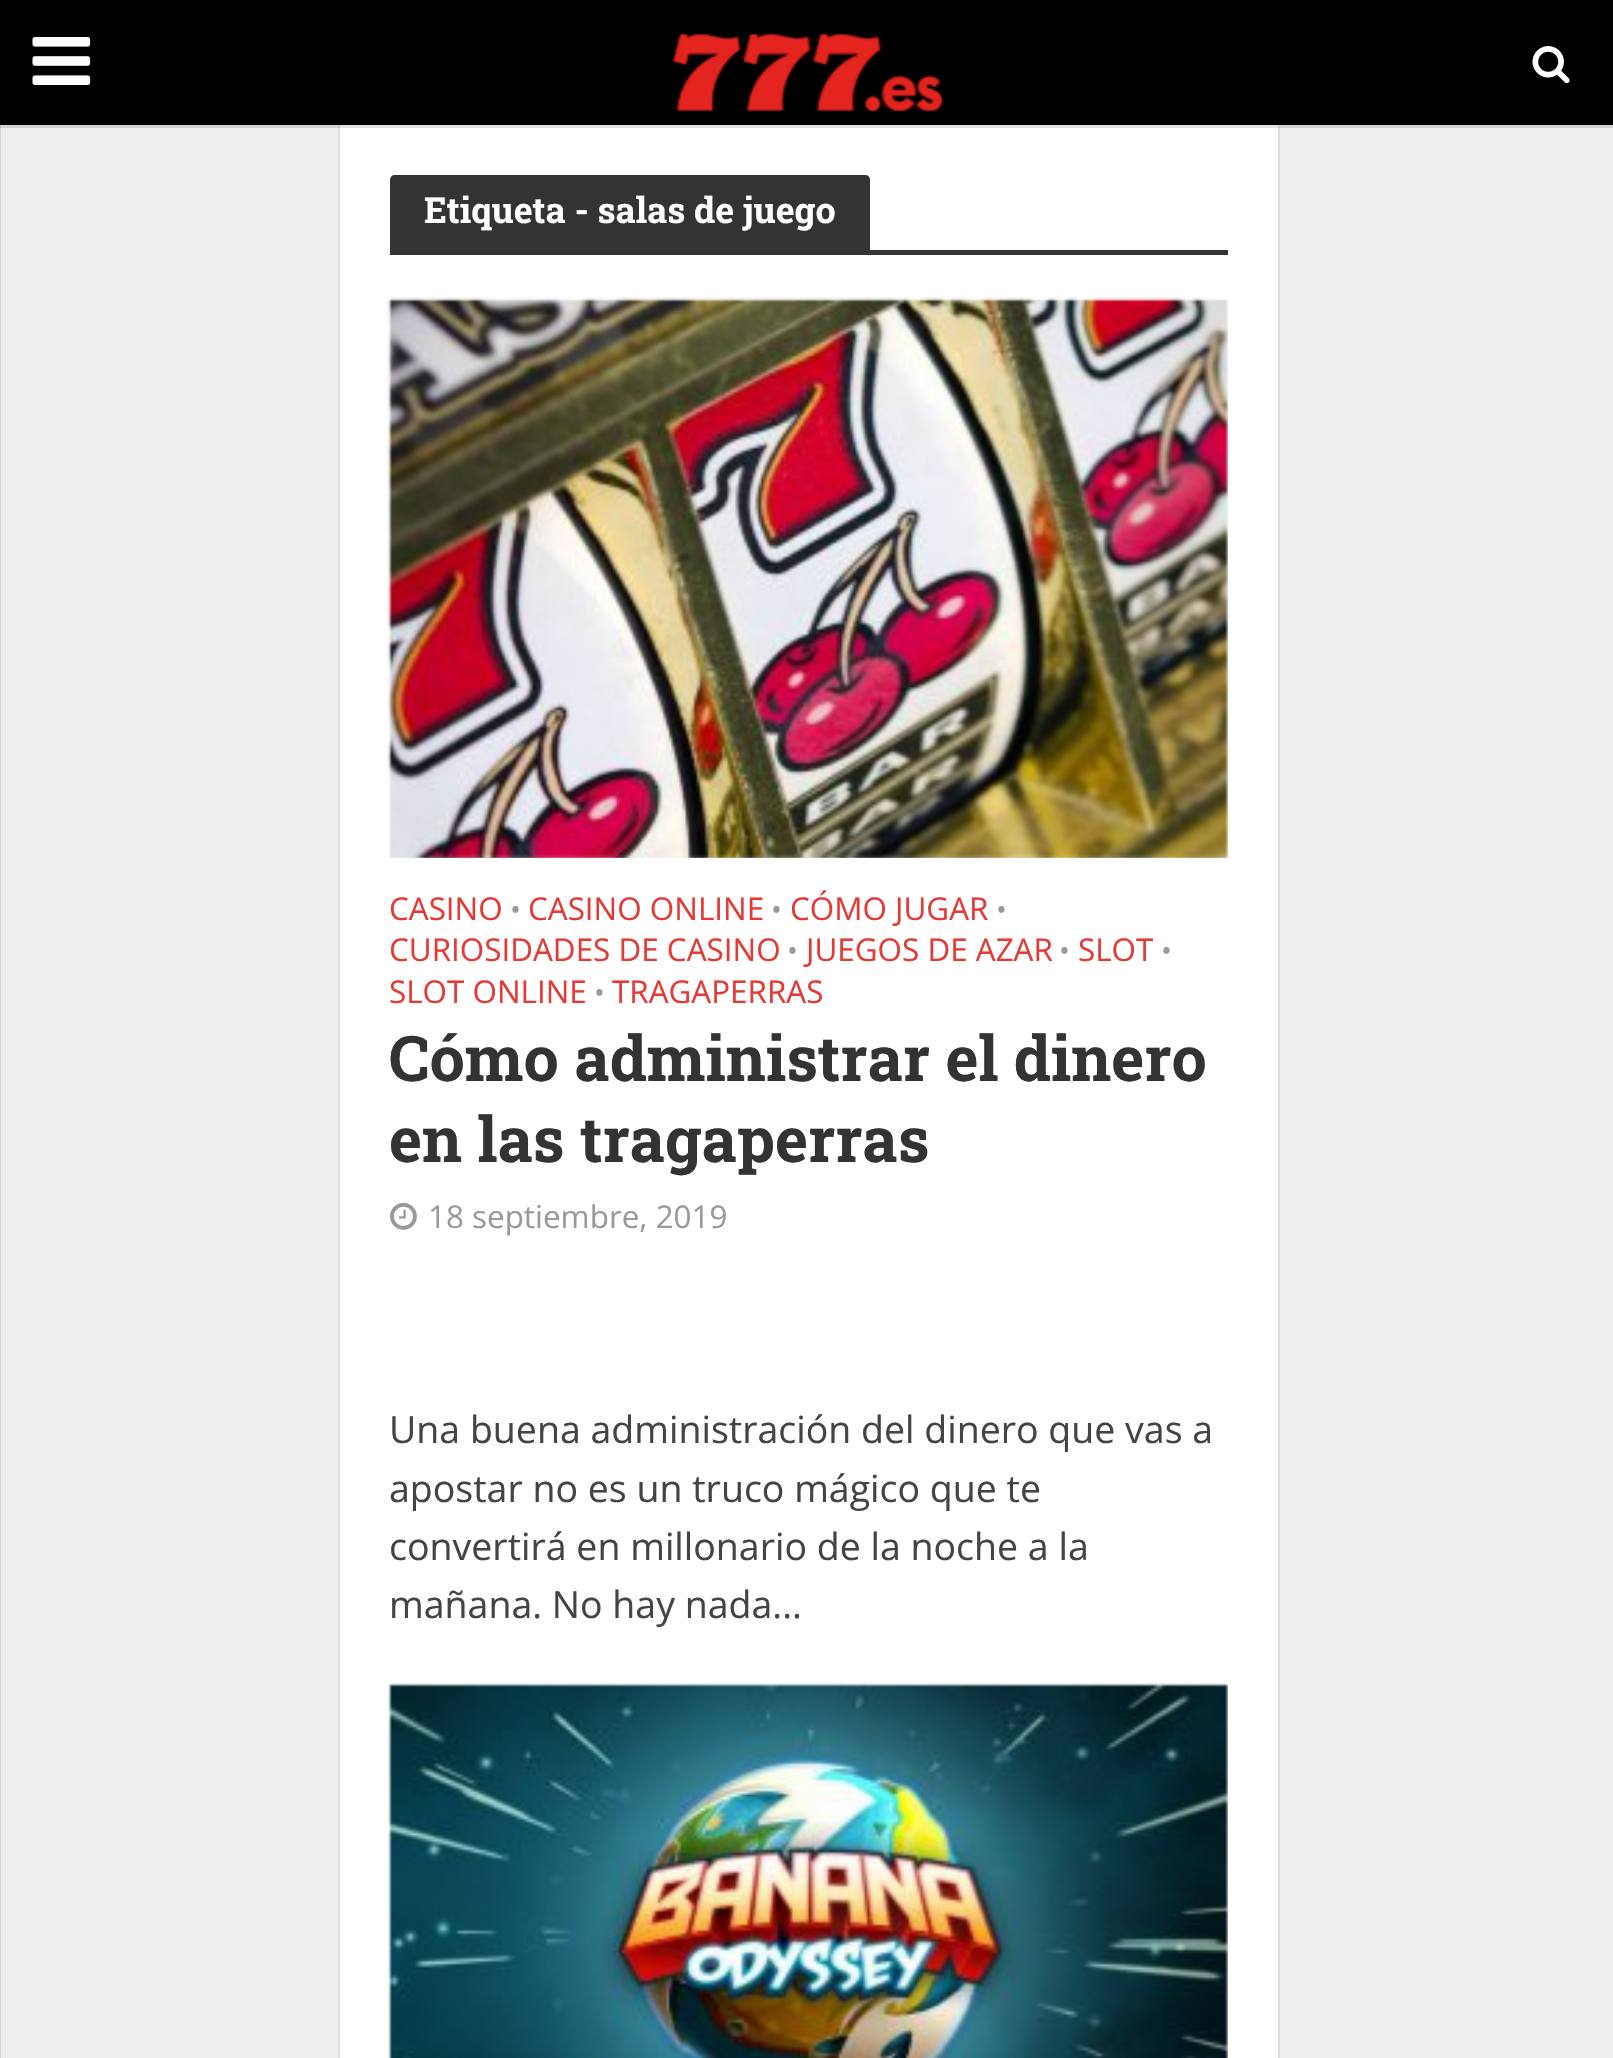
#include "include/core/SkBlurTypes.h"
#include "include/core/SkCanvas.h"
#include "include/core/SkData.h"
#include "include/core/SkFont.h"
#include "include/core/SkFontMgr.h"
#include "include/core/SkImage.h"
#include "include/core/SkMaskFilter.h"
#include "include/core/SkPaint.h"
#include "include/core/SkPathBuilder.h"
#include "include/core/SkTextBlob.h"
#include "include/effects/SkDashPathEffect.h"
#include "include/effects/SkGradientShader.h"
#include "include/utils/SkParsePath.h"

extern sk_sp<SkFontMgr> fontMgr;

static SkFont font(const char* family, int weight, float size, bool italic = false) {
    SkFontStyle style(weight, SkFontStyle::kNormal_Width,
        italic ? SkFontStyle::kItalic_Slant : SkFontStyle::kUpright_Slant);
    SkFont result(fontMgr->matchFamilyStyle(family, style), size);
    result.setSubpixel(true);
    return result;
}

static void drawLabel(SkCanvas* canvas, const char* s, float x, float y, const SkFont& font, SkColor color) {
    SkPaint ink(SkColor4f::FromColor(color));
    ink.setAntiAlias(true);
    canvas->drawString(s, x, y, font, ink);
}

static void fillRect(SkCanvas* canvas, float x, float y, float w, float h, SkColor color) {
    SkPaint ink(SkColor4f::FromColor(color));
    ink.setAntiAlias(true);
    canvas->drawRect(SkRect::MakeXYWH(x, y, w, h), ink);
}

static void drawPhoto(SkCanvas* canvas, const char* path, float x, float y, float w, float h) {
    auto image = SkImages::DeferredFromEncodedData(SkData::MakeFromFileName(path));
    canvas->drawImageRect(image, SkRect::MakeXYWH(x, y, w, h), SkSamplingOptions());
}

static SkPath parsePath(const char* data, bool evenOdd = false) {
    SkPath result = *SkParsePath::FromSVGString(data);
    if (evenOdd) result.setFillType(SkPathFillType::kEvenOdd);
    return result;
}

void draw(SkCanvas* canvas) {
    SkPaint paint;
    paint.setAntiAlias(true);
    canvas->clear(0xFFEEEEEE);
    fillRect(canvas, 0, 125, 1, 1933, 0xFFD2D2D2);
    paint.setStroke(true);
    paint.setStrokeWidth(3);
    paint.setColor(0xFFDDDDDD);
    canvas->drawRect(SkRect::MakeXYWH(339.5f, 124.5f, 939, 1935), paint);
    fillRect(canvas, 340, 125, 938, 1933, 0xFFFFFFFF);
    paint.setStroke(false);
    paint.setColor(0x26333333);
    canvas->drawPath(parsePath("M0-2V0H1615V125H0V128H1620V-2Z"), paint);
    fillRect(canvas, 0, 0, 1613, 125, 0xFF000000);
    drawPhoto(canvas, "assets/img1.png", 32, 37, 59, 48);
    drawPhoto(canvas, "assets/img2.png", 672, 33, 272, 79);
    drawPhoto(canvas, "assets/img3.png", 1532, 46, 38, 38);
    paint.setColor(0xFF333333);
    canvas->drawPath(parsePath("M395 175H865C868 175 870 177 870 180V250H390V180C390 177 392 175 395 175Z"), paint);
    SkFont font1 = font("Roboto Slab", 700, 35.8f);
    drawLabel(canvas, "Etiqueta - salas de juego", 424, 223, font1, 0xFFFFFFFF);
    fillRect(canvas, 390, 250, 838, 5, 0xFF333333);
    fillRect(canvas, 390, 300, 838, 558, 0xFFF3F3F3);
    drawPhoto(canvas, "assets/img4.png", 387, 297, 841, 561);
    SkFont font2 = font("Open Sans", 400, 31.4f);
    drawLabel(canvas, "CASINO", 389, 920, font2, 0xFFE53935);
    SkFont font3 = font("Open Sans", 400, 29);
    drawLabel(canvas, "•", 510, 920, font3, 0xFF999999);
    drawLabel(canvas, "CASINO ONLINE", 528, 920, font2, 0xFFE53935);
    drawLabel(canvas, "•", 771, 920, font3, 0xFF999999);
    drawLabel(canvas, "CÓMO JUGAR", 790, 920, font2, 0xFFE53935);
    drawLabel(canvas, "•", 996, 920, font3, 0xFF999999);
    drawLabel(canvas, "CURIOSIDADES DE CASINO", 389, 961, font2, 0xFFE53935);
    drawLabel(canvas, "•", 787, 961, font3, 0xFF999999);
    drawLabel(canvas, "JUEGOS DE AZAR", 806, 961, font2, 0xFFE53935);
    drawLabel(canvas, "•", 1059, 961, font3, 0xFF999999);
    drawLabel(canvas, "SLOT", 1078, 961, font2, 0xFFE53935);
    drawLabel(canvas, "•", 1161, 961, font3, 0xFF999999);
    drawLabel(canvas, "SLOT ONLINE", 389, 1003, font2, 0xFFE53935);
    drawLabel(canvas, "•", 594, 1003, font3, 0xFF999999);
    drawLabel(canvas, "TRAGAPERRAS", 612, 1003, font2, 0xFFE53935);
    SkFont font4 = font("Roboto Slab", 700, 62.75f);
    drawLabel(canvas, "Cómo administrar el dinero", 389, 1081, font4, 0xFF333333);
    drawLabel(canvas, "en las tragaperras", 389, 1162, font4, 0xFF333333);
    drawPhoto(canvas, "assets/img5.png", 390, 1202, 27, 28);
    drawLabel(canvas, "18 septiembre, 2019", 428, 1228, font2, 0xFF999999);
    SkFont font5 = font("Open Sans", 400, 37.5f);
    drawLabel(canvas, "Una buena administración del dinero que vas a", 389, 1443, font5, 0xFF444444);
    drawLabel(canvas, "apostar no es un truco mágico que te", 389, 1502, font5, 0xFF444444);
    drawLabel(canvas, "convertirá en millonario de la noche a la", 389, 1560, font5, 0xFF444444);
    drawLabel(canvas, "mañana. No hay nada...", 389, 1618, font5, 0xFF444444);
    fillRect(canvas, 390, 1685, 838, 373, 0xFFF3F3F3);
    drawPhoto(canvas, "assets/img6.png", 388, 1683, 840, 375);
}
